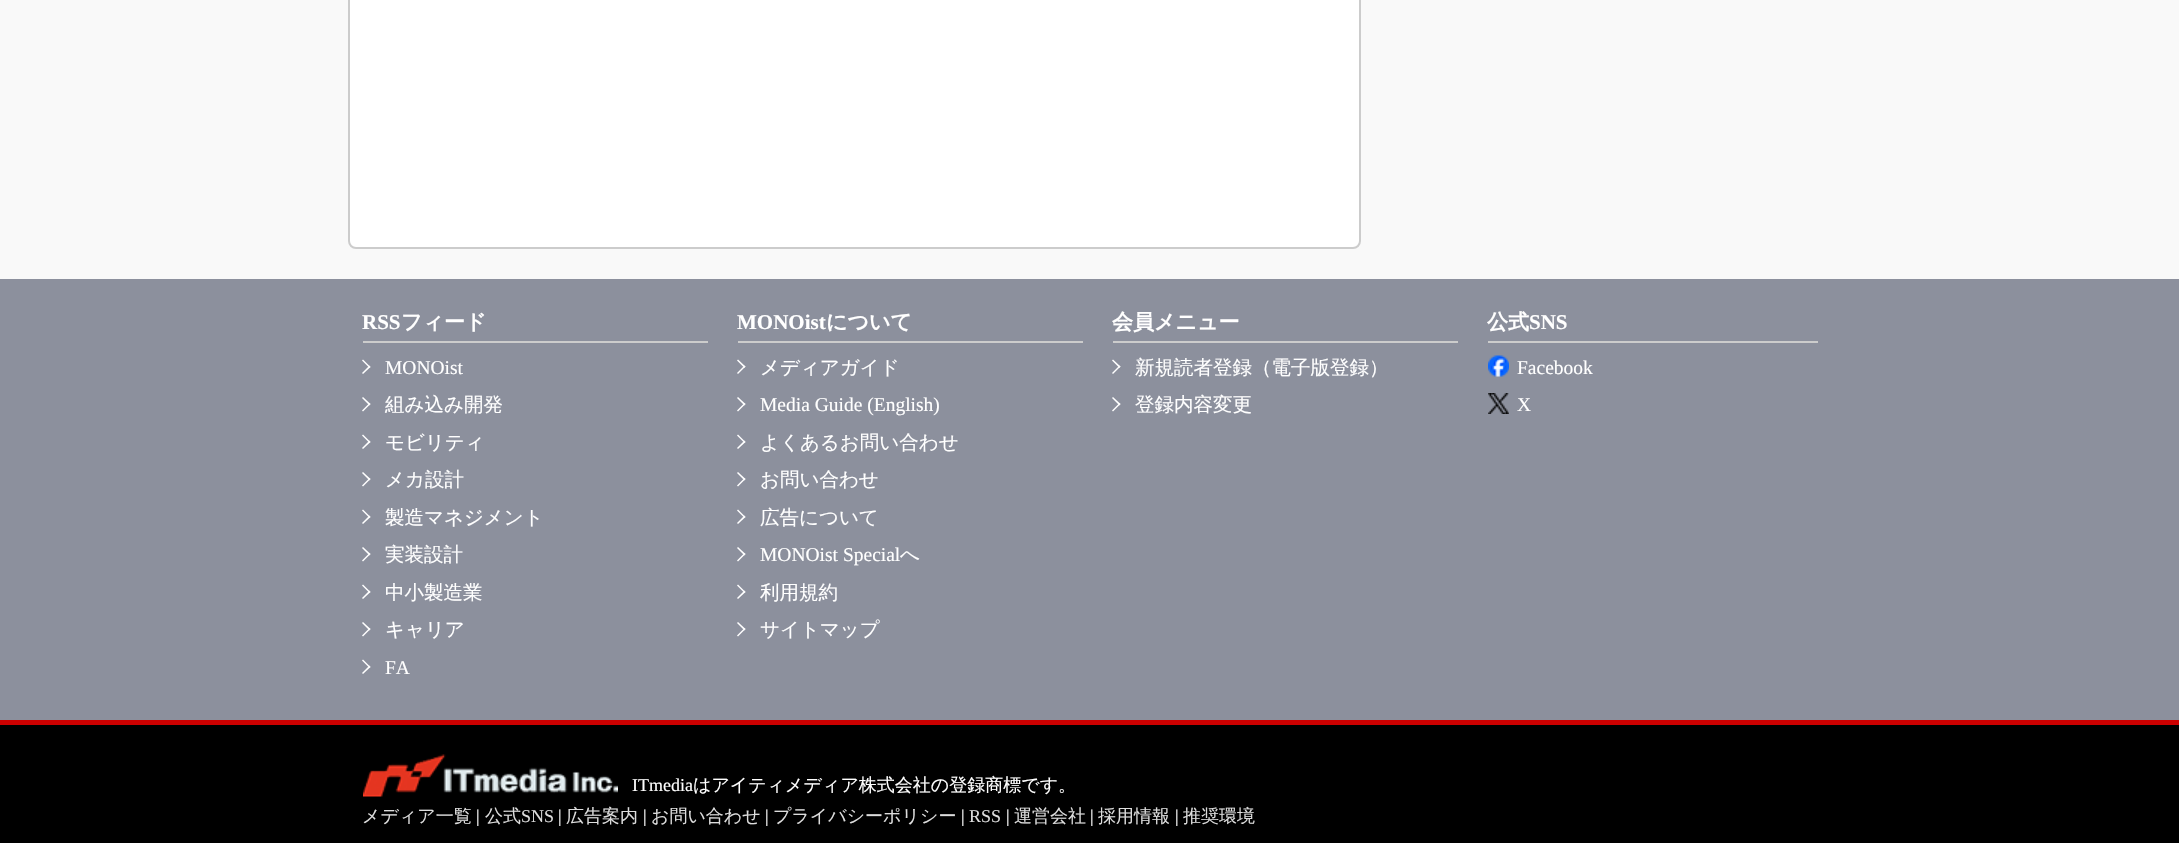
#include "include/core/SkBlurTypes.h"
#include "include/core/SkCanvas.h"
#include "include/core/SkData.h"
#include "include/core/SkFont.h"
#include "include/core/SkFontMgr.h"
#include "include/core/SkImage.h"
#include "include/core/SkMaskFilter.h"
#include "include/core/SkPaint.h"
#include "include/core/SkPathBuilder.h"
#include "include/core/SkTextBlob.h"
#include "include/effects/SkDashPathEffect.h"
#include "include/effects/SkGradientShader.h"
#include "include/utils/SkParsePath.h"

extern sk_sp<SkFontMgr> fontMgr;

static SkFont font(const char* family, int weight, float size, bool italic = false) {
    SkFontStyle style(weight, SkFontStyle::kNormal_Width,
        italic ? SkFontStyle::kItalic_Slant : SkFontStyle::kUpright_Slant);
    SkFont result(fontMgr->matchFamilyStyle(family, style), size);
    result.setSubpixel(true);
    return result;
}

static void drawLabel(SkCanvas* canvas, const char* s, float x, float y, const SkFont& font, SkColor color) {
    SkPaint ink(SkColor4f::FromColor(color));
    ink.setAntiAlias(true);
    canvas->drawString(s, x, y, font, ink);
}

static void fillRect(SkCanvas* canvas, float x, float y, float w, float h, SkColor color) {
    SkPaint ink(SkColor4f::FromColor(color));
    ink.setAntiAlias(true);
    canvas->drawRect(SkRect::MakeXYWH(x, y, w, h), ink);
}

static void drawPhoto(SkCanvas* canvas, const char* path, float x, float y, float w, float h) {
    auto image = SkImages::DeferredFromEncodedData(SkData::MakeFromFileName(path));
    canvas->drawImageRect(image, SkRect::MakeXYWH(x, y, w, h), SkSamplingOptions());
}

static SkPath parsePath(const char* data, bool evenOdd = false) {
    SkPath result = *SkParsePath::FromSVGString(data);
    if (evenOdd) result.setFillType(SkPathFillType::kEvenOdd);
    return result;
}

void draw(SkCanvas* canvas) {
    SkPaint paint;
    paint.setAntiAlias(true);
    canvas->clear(0xFFF9F9F9);
    paint.setColor(0xFFFFFFFF);
    canvas->drawRoundRect(SkRect::MakeXYWH(349, -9, 1011, 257), 7, 7, paint);
    paint.setStroke(true);
    paint.setStrokeWidth(2);
    paint.setColor(0xFFCCCCCC);
    canvas->drawRoundRect(SkRect::MakeXYWH(349, -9, 1011, 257), 7, 7, paint);
    fillRect(canvas, 0, 279, 2179, 441, 0xFF8C909D);
    fillRect(canvas, 363, 341, 345, 2, 0xFFCCCCCC);
    SkFont font1 = font("Liberation Serif", 700, 21);
    drawLabel(canvas, "RSS", 362, 329, font1, 0xFFFFFFFF);
    SkFont font2 = font("WenQuanYi Zen Hei", 700, 21);
    drawLabel(canvas, "フィード", 401, 329, font2, 0xFFFFFFFF);
    paint.setStroke(false);
    paint.setColor(0xFFFFFFFF);
    canvas->drawPath(parsePath("M362 360.5L363 359.5L370.5 367L369.5 368Z"), paint);
    canvas->drawPath(parsePath("M362 373L369.5 365.5L370.5 367L363 374Z"), paint);
    SkFont font3 = font("Liberation Serif", 400, 19.5f);
    drawLabel(canvas, "MONOist", 385, 374, font3, 0xFFFFFFFF);
    canvas->drawPath(parsePath("M362 398L363 397L370.5 404L369.5 405.5Z"), paint);
    canvas->drawPath(parsePath("M362 410.5L369.5 403L370.5 404L363 411.5Z"), paint);
    SkFont font4 = font("WenQuanYi Zen Hei", 500, 19.5f);
    drawLabel(canvas, "組み込み開発", 385, 411, font4, 0xFFFFFFFF);
    canvas->drawPath(parsePath("M362 435.5L363 434.5L370.5 442L369.5 443Z"), paint);
    canvas->drawPath(parsePath("M362 448L369.5 440.5L370.5 442L363 449Z"), paint);
    drawLabel(canvas, "モビリティ", 385, 449, font4, 0xFFFFFFFF);
    canvas->drawPath(parsePath("M362 473L363 472L370.5 479L369.5 480.5Z"), paint);
    canvas->drawPath(parsePath("M362 485.5L369.5 478L370.5 479L363 486.5Z"), paint);
    drawLabel(canvas, "メカ設計", 385, 486, font4, 0xFFFFFFFF);
    canvas->drawPath(parsePath("M362 510.5L363 509.5L370.5 517L369.5 518Z"), paint);
    canvas->drawPath(parsePath("M362 523L369.5 515.5L370.5 517L363 524Z"), paint);
    drawLabel(canvas, "製造マネジメント", 385, 524, font4, 0xFFFFFFFF);
    canvas->drawPath(parsePath("M362 548L363 547L370.5 554L369.5 555.5Z"), paint);
    canvas->drawPath(parsePath("M362 560.5L369.5 553L370.5 554L363 561.5Z"), paint);
    drawLabel(canvas, "実装設計", 385, 561, font4, 0xFFFFFFFF);
    canvas->drawPath(parsePath("M362 585.5L363 584.5L370.5 592L369.5 593Z"), paint);
    canvas->drawPath(parsePath("M362 598L369.5 590.5L370.5 592L363 599Z"), paint);
    drawLabel(canvas, "中小製造業", 385, 599, font4, 0xFFFFFFFF);
    canvas->drawPath(parsePath("M362 623L363 622L370.5 629L369.5 630.5Z"), paint);
    canvas->drawPath(parsePath("M362 635.5L369.5 628L370.5 629L363 636.5Z"), paint);
    drawLabel(canvas, "キャリア", 385, 636, font4, 0xFFFFFFFF);
    canvas->drawPath(parsePath("M362 660.5L363 659.5L370.5 667L369.5 668Z"), paint);
    canvas->drawPath(parsePath("M362 673L369.5 665.5L370.5 667L363 674Z"), paint);
    drawLabel(canvas, "FA", 385, 674, font3, 0xFFFFFFFF);
    fillRect(canvas, 738, 341, 345, 2, 0xFFCCCCCC);
    drawLabel(canvas, "MONOist", 737, 329, font1, 0xFFFFFFFF);
    drawLabel(canvas, "について", 826, 329, font2, 0xFFFFFFFF);
    canvas->drawPath(parsePath("M737 360.5L738 359.5L745.5 366.5L744.5 368Z"), paint);
    canvas->drawPath(parsePath("M737 373L744.5 365.5L745.5 366.5L738 374Z"), paint);
    drawLabel(canvas, "メディアガイド", 760, 374, font4, 0xFFFFFFFF);
    canvas->drawPath(parsePath("M737 398L738 397L745.5 404L744.5 405.5Z"), paint);
    canvas->drawPath(parsePath("M737 410.5L744.5 403L745.5 404L738 411.5Z"), paint);
    drawLabel(canvas, "Media Guide (English)", 760, 411, font3, 0xFFFFFFFF);
    canvas->drawPath(parsePath("M737 435.5L738 434.5L745.5 442L744.5 443Z"), paint);
    canvas->drawPath(parsePath("M737 448L744.5 440.5L745.5 442L738 449Z"), paint);
    drawLabel(canvas, "よくあるお問い合わせ", 760, 449, font4, 0xFFFFFFFF);
    canvas->drawPath(parsePath("M737 473L738 472L745.5 479L744.5 480.5Z"), paint);
    canvas->drawPath(parsePath("M737 485.5L744.5 478L745.5 479L738 486.5Z"), paint);
    drawLabel(canvas, "お問い合わせ", 760, 486, font4, 0xFFFFFFFF);
    canvas->drawPath(parsePath("M737 510.5L738 509.5L745.5 517L744.5 518Z"), paint);
    canvas->drawPath(parsePath("M737 523L744.5 515.5L745.5 517L738 524Z"), paint);
    drawLabel(canvas, "広告について", 760, 524, font4, 0xFFFFFFFF);
    canvas->drawPath(parsePath("M737 548L738 547L745.5 554L744.5 555.5Z"), paint);
    canvas->drawPath(parsePath("M737 560.5L744.5 553L745.5 554L738 561.5Z"), paint);
    drawLabel(canvas, "MONOist Special", 760, 561, font3, 0xFFFFFFFF);
    drawLabel(canvas, "へ", 900, 561, font4, 0xFFFFFFFF);
    canvas->drawPath(parsePath("M737 585.5L738 584.5L745.5 592L744.5 593Z"), paint);
    canvas->drawPath(parsePath("M737 598L744.5 590.5L745.5 592L738 599Z"), paint);
    drawLabel(canvas, "利用規約", 760, 599, font4, 0xFFFFFFFF);
    canvas->drawPath(parsePath("M737 623L738 622L745.5 629L744.5 630.5Z"), paint);
    canvas->drawPath(parsePath("M737 635.5L744.5 628L745.5 629L738 636.5Z"), paint);
    drawLabel(canvas, "サイトマップ", 760, 636, font4, 0xFFFFFFFF);
    fillRect(canvas, 1113, 341, 345, 2, 0xFFCCCCCC);
    drawLabel(canvas, "会員メニュー", 1112, 329, font2, 0xFFFFFFFF);
    canvas->drawPath(parsePath("M1112 360.5L1113 359.5L1120.5 366.5L1119.5 368Z"), paint);
    canvas->drawPath(parsePath("M1112 373L1119.5 365.5L1120.5 366.5L1113 374Z"), paint);
    drawLabel(canvas, "新規読者登録（電子版登録）", 1135, 374, font4, 0xFFFFFFFF);
    canvas->drawPath(parsePath("M1112 398L1113 397L1120.5 404L1119.5 405.5Z"), paint);
    canvas->drawPath(parsePath("M1112 410.5L1119.5 403L1120.5 404L1113 411.5Z"), paint);
    drawLabel(canvas, "登録内容変更", 1135, 411, font4, 0xFFFFFFFF);
    fillRect(canvas, 1488, 341, 330, 2, 0xFFCCCCCC);
    drawLabel(canvas, "公式", 1487, 329, font2, 0xFFFFFFFF);
    drawLabel(canvas, "SNS", 1529, 329, font1, 0xFFFFFFFF);
    drawPhoto(canvas, "assets/img1.png", 1488, 355, 21, 22);
    drawLabel(canvas, "Facebook", 1517, 374, font3, 0xFFFFFFFF);
    drawPhoto(canvas, "assets/img2.png", 1488, 393, 21, 21);
    drawLabel(canvas, "X", 1517, 411, font3, 0xFFFFFFFF);
    fillRect(canvas, 0, 725, 2179, 118, 0xFF000000);
    fillRect(canvas, 0, 720, 2179, 5, 0xFFCC0000);
    drawPhoto(canvas, "assets/img3.png", 363, 754, 255, 43);
    SkFont font5 = font("Liberation Serif", 400, 18);
    drawLabel(canvas, "ITmedia", 632, 791, font5, 0xFFFFFFFF);
    SkFont font6 = font("WenQuanYi Zen Hei", 500, 18);
    drawLabel(canvas, "はアイティメディア株式会社の登録商標です。", 693, 791, font6, 0xFFFFFFFF);
    drawLabel(canvas, "メディア一覧", 362, 822, font6, 0xFFDDDDDD);
    drawLabel(canvas, "|", 476, 822, font5, 0xFFFFFFFF);
    drawLabel(canvas, "公式", 485, 822, font6, 0xFFDDDDDD);
    drawLabel(canvas, "SNS", 521, 822, font5, 0xFFDDDDDD);
    drawLabel(canvas, "|", 558, 822, font5, 0xFFFFFFFF);
    drawLabel(canvas, "広告案内", 566, 822, font6, 0xFFDDDDDD);
    drawLabel(canvas, "|", 643, 822, font5, 0xFFFFFFFF);
    drawLabel(canvas, "お問い合わせ", 651, 822, font6, 0xFFDDDDDD);
    drawLabel(canvas, "|", 765, 822, font5, 0xFFFFFFFF);
    drawLabel(canvas, "プライバシーポリシー", 773, 822, font6, 0xFFDDDDDD);
    drawLabel(canvas, "|", 961, 822, font5, 0xFFFFFFFF);
    drawLabel(canvas, "RSS", 969, 822, font5, 0xFFDDDDDD);
    drawLabel(canvas, "|", 1006, 822, font5, 0xFFFFFFFF);
    drawLabel(canvas, "運営会社", 1014, 822, font6, 0xFFDDDDDD);
    drawLabel(canvas, "|", 1090, 822, font5, 0xFFFFFFFF);
    drawLabel(canvas, "採用情報", 1098, 822, font6, 0xFFDDDDDD);
    drawLabel(canvas, "|", 1175, 822, font5, 0xFFFFFFFF);
    drawLabel(canvas, "推奨環境", 1183, 822, font6, 0xFFDDDDDD);
}
